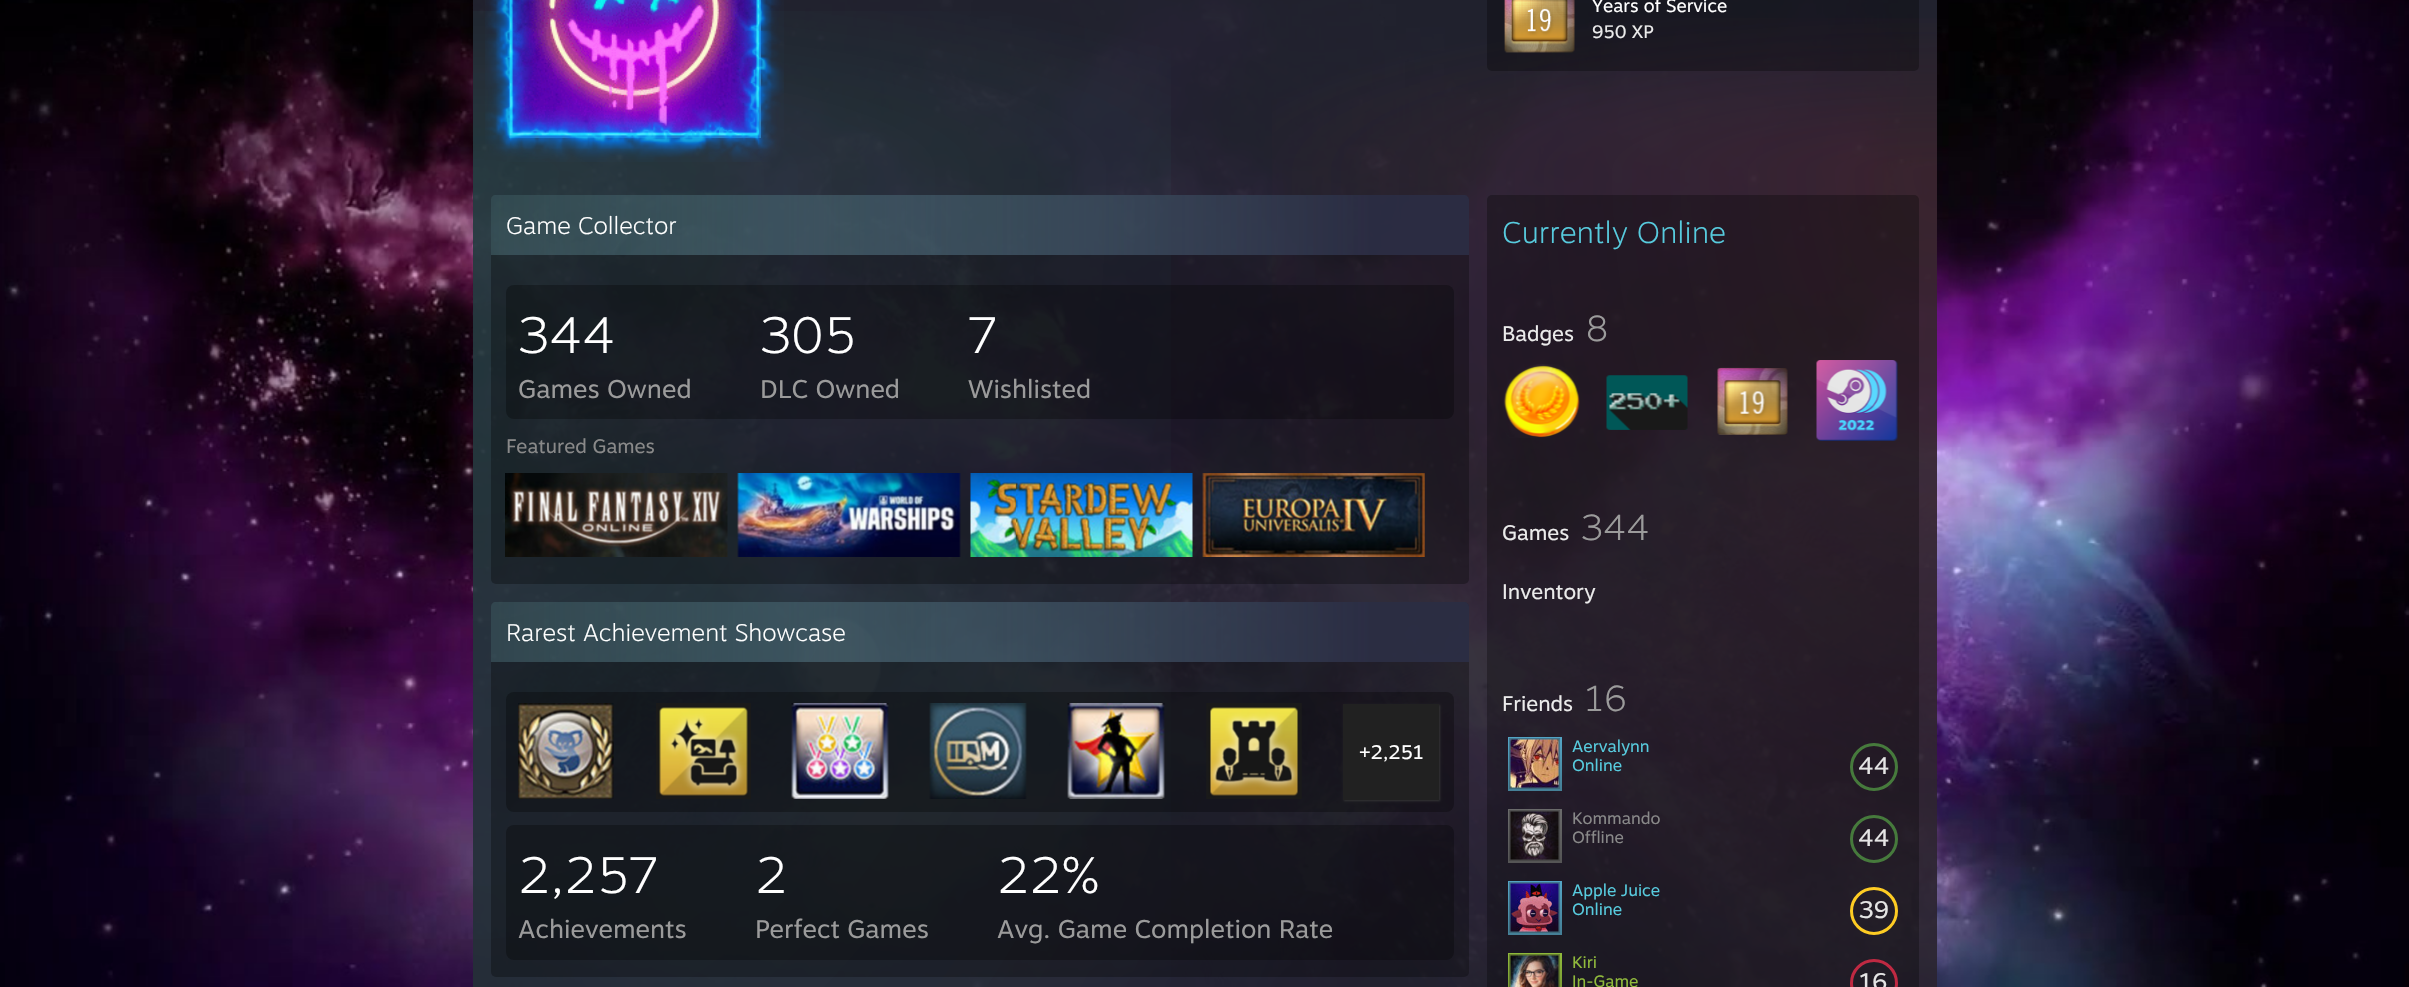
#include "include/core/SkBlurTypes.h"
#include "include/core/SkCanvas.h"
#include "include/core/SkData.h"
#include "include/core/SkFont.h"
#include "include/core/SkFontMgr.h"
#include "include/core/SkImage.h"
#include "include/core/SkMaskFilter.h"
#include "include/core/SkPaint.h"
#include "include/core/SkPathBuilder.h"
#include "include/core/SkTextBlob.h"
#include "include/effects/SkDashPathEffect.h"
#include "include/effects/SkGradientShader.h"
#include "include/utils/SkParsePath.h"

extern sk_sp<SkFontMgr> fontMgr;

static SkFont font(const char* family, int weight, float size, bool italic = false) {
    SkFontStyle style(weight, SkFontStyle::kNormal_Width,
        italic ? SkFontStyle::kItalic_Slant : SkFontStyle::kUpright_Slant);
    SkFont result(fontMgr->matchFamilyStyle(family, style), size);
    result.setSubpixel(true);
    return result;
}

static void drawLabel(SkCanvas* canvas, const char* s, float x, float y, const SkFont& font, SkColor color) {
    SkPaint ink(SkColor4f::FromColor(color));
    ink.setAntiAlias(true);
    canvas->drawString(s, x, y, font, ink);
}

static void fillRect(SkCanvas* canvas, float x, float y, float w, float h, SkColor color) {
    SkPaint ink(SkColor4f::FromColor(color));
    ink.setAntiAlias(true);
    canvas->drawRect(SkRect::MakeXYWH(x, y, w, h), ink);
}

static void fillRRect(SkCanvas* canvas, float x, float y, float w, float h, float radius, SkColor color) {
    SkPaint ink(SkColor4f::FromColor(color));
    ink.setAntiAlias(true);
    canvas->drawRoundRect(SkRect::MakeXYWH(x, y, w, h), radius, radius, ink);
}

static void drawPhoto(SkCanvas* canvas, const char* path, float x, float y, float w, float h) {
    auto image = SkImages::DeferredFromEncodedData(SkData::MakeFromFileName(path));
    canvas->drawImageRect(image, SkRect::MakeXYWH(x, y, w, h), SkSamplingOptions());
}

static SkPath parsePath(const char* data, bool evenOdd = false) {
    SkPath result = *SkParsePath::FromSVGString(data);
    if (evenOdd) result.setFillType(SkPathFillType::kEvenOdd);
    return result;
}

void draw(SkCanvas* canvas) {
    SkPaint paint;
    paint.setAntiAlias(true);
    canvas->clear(0xFFFFFFFF);
    drawPhoto(canvas, "assets/img1.png", 0, 0, 2409, 987);
    fillRect(canvas, 473, 0, 1464, 171, 0xED222330);
    {
        const SkColor colors[] = {0x1A32FFC1, 0x0032FFC1};
        const float stops[] = {0, 0.43f};
        SkMatrix m = SkMatrix::Translate(473, 171).preScale(2070, 475);
        paint.setShader(SkGradientShader::MakeRadial({0, 0}, 1, colors, stops, 2, SkTileMode::kClamp, 0, &m));
        paint.setAlpha(255);
    }
    canvas->drawRect(SkRect::MakeXYWH(473, 11, 698, 160), paint);
    {
        const SkColor colors[] = {0x4D6D262C, 0x006D262C};
        const float stops[] = {0, 0.51f};
        SkMatrix m = SkMatrix::Translate(1937, 171).preScale(1464, 336);
        paint.setShader(SkGradientShader::MakeRadial({0, 0}, 1, colors, stops, 2, SkTileMode::kClamp, 0, &m));
        paint.setAlpha(255);
    }
    canvas->drawRect(SkRect::MakeXYWH(1272, 18, 665, 153), paint);
    {
        const SkColor colors[] = {0xFF53A4C4, 0xFF458097};
        const float stops[] = {0.05f, 0.95f};
        const SkPoint ends[] = {{635, -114}, {635, 138}};
        paint.setShader(SkGradientShader::MakeLinear(ends, colors, stops, 2, SkTileMode::kClamp));
        paint.setAlpha(255);
    }
    canvas->drawRect(SkRect::MakeXYWH(509, 0, 252, 138), paint);
    drawPhoto(canvas, "assets/img3.png", 511, 0, 247, 135);
    drawPhoto(canvas, "assets/img2.png", 485, 0, 299, 162);
    fillRRect(canvas, 1487, -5, 432, 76, 5, 0x4D000000);
    drawPhoto(canvas, "assets/img4.png", 1504, 0, 71, 53);
    SkFont font1 = font("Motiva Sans", 400, 18);
    drawLabel(canvas, "Years of Service", 1592, 12, font1, 0xFFFFFFFF);
    drawLabel(canvas, "950 XP", 1592, 38, font1, 0xFFEBEBEB);
    fillRect(canvas, 473, 171, 1464, 816, 0xED222330);
    {
        const SkColor colors[] = {0x1A32FFC1, 0x0032FFC1};
        const float stops[] = {0, 0.43f};
        SkMatrix m = SkMatrix::Translate(473, 171).preScale(2070, 3203);
        paint.setShader(SkGradientShader::MakeRadial({0, 0}, 1, colors, stops, 2, SkTileMode::kClamp, 0, &m));
        paint.setAlpha(255);
    }
    canvas->drawRect(SkRect::MakeXYWH(473, 171, 698, 816), paint);
    {
        const SkColor colors[] = {0x4D6D262C, 0x006D262C};
        const float stops[] = {0, 0.51f};
        SkMatrix m = SkMatrix::Translate(1937, 171).preScale(1464, 2265);
        paint.setShader(SkGradientShader::MakeRadial({0, 0}, 1, colors, stops, 2, SkTileMode::kClamp, 0, &m));
        paint.setAlpha(255);
    }
    canvas->drawRect(SkRect::MakeXYWH(1272, 171, 665, 816), paint);
    fillRRect(canvas, 491, 195, 978, 389, 5, 0x4D000000);
    {
        const SkColor colors[] = {0x4073ADB8, 0xED2B2D44};
        const float stops[] = {0, 0.9f};
        const SkPoint ends[] = {{491, 225}, {1469, 225}};
        paint.setShader(SkGradientShader::MakeLinear(ends, colors, stops, 2, SkTileMode::kClamp));
        paint.setAlpha(255);
    }
    canvas->drawPath(parsePath("M496 195H1464C1467 195 1469 197 1469 200V255H491V200C491 197 493 195 496 195Z"), paint);
    SkFont font2 = font("Motiva Sans", 100, 24);
    drawLabel(canvas, "Game Collector", 506, 234, font2, 0xFFFFFFFF);
    fillRRect(canvas, 506, 285, 948, 134, 8, 0x4D000000);
    SkFont font3 = font("Motiva Sans", 100, 51);
    drawLabel(canvas, "344", 518, 353, font3, 0xFFFFFFFF);
    SkFont font4 = font("Motiva Sans", 400, 25.5f);
    drawLabel(canvas, "Games Owned", 518, 398, font4, 0xFF9B9B9B);
    drawLabel(canvas, "305", 760, 353, font3, 0xFFFFFFFF);
    drawLabel(canvas, "DLC Owned", 760, 398, font4, 0xFF9B9B9B);
    drawLabel(canvas, "7", 968, 353, font3, 0xFFFFFFFF);
    drawLabel(canvas, "Wishlisted", 968, 398, font4, 0xFF9B9B9B);
    SkFont font5 = font("Motiva Sans", 400, 19.5f);
    drawLabel(canvas, "Featured Games", 506, 453, font5, 0xFF898989);
    drawPhoto(canvas, "assets/img5.png", 505, 473, 223, 84);
    drawPhoto(canvas, "assets/img6.png", 737, 473, 224, 84);
    drawPhoto(canvas, "assets/img7.png", 970, 473, 223, 84);
    drawPhoto(canvas, "assets/img8.png", 1202, 473, 223, 84);
    fillRRect(canvas, 491, 602, 978, 375, 5, 0x4D000000);
    {
        const SkColor colors[] = {0x4073ADB8, 0xED2B2D44};
        const float stops[] = {0, 0.9f};
        const SkPoint ends[] = {{491, 632}, {1469, 632}};
        paint.setShader(SkGradientShader::MakeLinear(ends, colors, stops, 2, SkTileMode::kClamp));
        paint.setAlpha(255);
    }
    canvas->drawPath(parsePath("M496 602H1464C1467 602 1469 604 1469 607V662H491V607C491 604 493 602 496 602Z"), paint);
    drawLabel(canvas, "Rarest Achievement Showcase", 506, 641, font2, 0xFFFFFFFF);
    fillRRect(canvas, 506, 692, 948, 120, 8, 0x4D000000);
    drawPhoto(canvas, "assets/img9.png", 518, 703, 96, 96);
    drawPhoto(canvas, "assets/img10.png", 656, 703, 95, 96);
    drawPhoto(canvas, "assets/img11.png", 791, 703, 98, 96);
    drawPhoto(canvas, "assets/img12.png", 929, 703, 98, 96);
    drawPhoto(canvas, "assets/img13.png", 1067, 703, 98, 96);
    drawPhoto(canvas, "assets/img14.png", 1206, 703, 96, 96);
    paint.setShader(nullptr);
    paint.setColor(0xFF353535);
    paint.setMaskFilter(SkMaskFilter::MakeBlur(kNormal_SkBlurStyle, 1));
    canvas->drawRect(SkRect::MakeXYWH(1344, 705, 96, 96), paint);
    paint.setMaskFilter(nullptr);
    fillRect(canvas, 1343, 704, 96, 96, 0xFF212121);
    drawLabel(canvas, "+2,251", 1359, 759, font5, 0xFFFFFFFF);
    fillRRect(canvas, 506, 825, 948, 135, 8, 0x4D000000);
    drawLabel(canvas, "2,257", 518, 893, font3, 0xFFFFFFFF);
    drawLabel(canvas, "Achievements", 518, 938, font4, 0xFF9B9B9B);
    drawLabel(canvas, "2", 755, 893, font3, 0xFFFFFFFF);
    drawLabel(canvas, "Perfect Games", 755, 938, font4, 0xFF9B9B9B);
    drawLabel(canvas, "22%", 997, 893, font3, 0xFFFFFFFF);
    drawLabel(canvas, "Avg. Game Completion Rate", 997, 938, font4, 0xFF9B9B9B);
    fillRRect(canvas, 1487, 195, 432, 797, 5, 0x4D000000);
    SkFont font6 = font("Motiva Sans", 100, 30);
    drawLabel(canvas, "Currently Online", 1502, 243, font6, 0xFF57CBDE);
    SkFont font7 = font("Motiva Sans", 400, 21);
    drawLabel(canvas, "Badges", 1502, 341, font7, 0xFFEBEBEB);
    SkFont font8 = font("Motiva Sans", 100, 36);
    drawLabel(canvas, "8", 1586, 341, font8, 0xFF9B9B9B);
    drawPhoto(canvas, "assets/img15.png", 1503, 364, 77, 74);
    drawPhoto(canvas, "assets/img16.png", 1606, 375, 82, 55);
    drawPhoto(canvas, "assets/img17.png", 1717, 367, 71, 68);
    drawPhoto(canvas, "assets/img18.png", 1816, 360, 82, 81);
    drawLabel(canvas, "Games", 1502, 540, font7, 0xFFEBEBEB);
    drawLabel(canvas, "344", 1581, 540, font8, 0xFF9B9B9B);
    drawLabel(canvas, "Inventory", 1502, 599, font7, 0xFFEBEBEB);
    drawLabel(canvas, "Friends", 1502, 711, font7, 0xFFEBEBEB);
    drawLabel(canvas, "16", 1585, 711, font8, 0xFF9B9B9B);
    {
        const SkColor colors[] = {0xFF53A4C4, 0xFF458097};
        const float stops[] = {0.05f, 0.95f};
        const SkPoint ends[] = {{1535, 737}, {1535, 791}};
        paint.setShader(SkGradientShader::MakeLinear(ends, colors, stops, 2, SkTileMode::kClamp));
        paint.setAlpha(255);
    }
    canvas->drawRect(SkRect::MakeXYWH(1508, 737, 54, 54), paint);
    {
        const SkColor colors[] = {0xFF41778F, 0xFF3D697B};
        const float stops[] = {0.05f, 0.95f};
        const SkPoint ends[] = {{1535, 738}, {1535, 789}};
        paint.setShader(SkGradientShader::MakeLinear(ends, colors, stops, 2, SkTileMode::kClamp));
        paint.setAlpha(255);
    }
    canvas->drawRect(SkRect::MakeXYWH(1509, 738, 51, 51), paint);
    drawPhoto(canvas, "assets/img19.png", 1510, 739, 49, 49);
    SkFont font9 = font("Motiva Sans", 400, 16.5f);
    drawLabel(canvas, "Aervalynn", 1572, 752, font9, 0xFF57CBDE);
    drawLabel(canvas, "Online", 1572, 771, font9, 0xFF57CBDE);
    paint.setStroke(true);
    paint.setStrokeWidth(3);
    paint.setShader(nullptr);
    paint.setColor(0xFF467A3C);
    canvas->drawCircle(1874, 767, 22.5f, paint);
    SkFont font10 = font("Motiva Sans", 400, 24);
    drawLabel(canvas, "44", 1858, 774, font10, 0xFFE5E5E5);
    paint.setStroke(false);
    {
        const SkColor colors[] = {0xFF6A6A6A, 0xFF555555};
        const float stops[] = {0.05f, 0.95f};
        const SkPoint ends[] = {{1535, 809}, {1535, 863}};
        paint.setShader(SkGradientShader::MakeLinear(ends, colors, stops, 2, SkTileMode::kClamp));
        paint.setAlpha(255);
    }
    canvas->drawRect(SkRect::MakeXYWH(1508, 809, 54, 54), paint);
    {
        const SkColor colors[] = {0xFF515151, 0xFF474747};
        const float stops[] = {0.05f, 0.95f};
        const SkPoint ends[] = {{1535, 810}, {1535, 861}};
        paint.setShader(SkGradientShader::MakeLinear(ends, colors, stops, 2, SkTileMode::kClamp));
        paint.setAlpha(255);
    }
    canvas->drawRect(SkRect::MakeXYWH(1509, 810, 51, 51), paint);
    drawPhoto(canvas, "assets/img20.png", 1510, 811, 49, 49);
    drawLabel(canvas, "Kommando", 1572, 824, font9, 0xFF898989);
    drawLabel(canvas, "Offline", 1572, 843, font9, 0xFF898989);
    paint.setStroke(true);
    paint.setShader(nullptr);
    paint.setColor(0xFF467A3C);
    canvas->drawCircle(1874, 839, 22.5f, paint);
    drawLabel(canvas, "44", 1858, 846, font10, 0xFFE5E5E5);
    paint.setStroke(false);
    {
        const SkColor colors[] = {0xFF53A4C4, 0xFF458097};
        const float stops[] = {0.05f, 0.95f};
        const SkPoint ends[] = {{1535, 881}, {1535, 935}};
        paint.setShader(SkGradientShader::MakeLinear(ends, colors, stops, 2, SkTileMode::kClamp));
        paint.setAlpha(255);
    }
    canvas->drawRect(SkRect::MakeXYWH(1508, 881, 54, 54), paint);
    {
        const SkColor colors[] = {0xFF41778F, 0xFF3D697B};
        const float stops[] = {0.05f, 0.95f};
        const SkPoint ends[] = {{1535, 882}, {1535, 933}};
        paint.setShader(SkGradientShader::MakeLinear(ends, colors, stops, 2, SkTileMode::kClamp));
        paint.setAlpha(255);
    }
    canvas->drawRect(SkRect::MakeXYWH(1509, 882, 51, 51), paint);
    drawPhoto(canvas, "assets/img21.png", 1510, 883, 49, 49);
    drawLabel(canvas, "Apple Juice", 1572, 896, font9, 0xFF57CBDE);
    drawLabel(canvas, "Online", 1572, 915, font9, 0xFF57CBDE);
    paint.setStroke(true);
    paint.setShader(nullptr);
    paint.setColor(0xFFFECC23);
    canvas->drawCircle(1874, 911, 22.5f, paint);
    drawLabel(canvas, "39", 1859, 918, font10, 0xFFE5E5E5);
    paint.setStroke(false);
    {
        const SkColor colors[] = {0xFF8FB93B, 0xFF6E8C31};
        const float stops[] = {0.05f, 0.95f};
        const SkPoint ends[] = {{1535, 953}, {1535, 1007}};
        paint.setShader(SkGradientShader::MakeLinear(ends, colors, stops, 2, SkTileMode::kClamp));
        paint.setAlpha(255);
    }
    canvas->drawRect(SkRect::MakeXYWH(1508, 953, 54, 34), paint);
    {
        const SkColor colors[] = {0xFF66812E, 0xFF59702B};
        const float stops[] = {0.05f, 0.95f};
        const SkPoint ends[] = {{1535, 954}, {1535, 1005}};
        paint.setShader(SkGradientShader::MakeLinear(ends, colors, stops, 2, SkTileMode::kClamp));
        paint.setAlpha(255);
    }
    canvas->drawRect(SkRect::MakeXYWH(1509, 954, 51, 33), paint);
    drawPhoto(canvas, "assets/img22.png", 1510, 955, 49, 32);
    drawLabel(canvas, "Kiri", 1572, 968, font9, 0xFF90BA3C);
    drawLabel(canvas, "In-Game", 1572, 987, font9, 0xFF90BA3C);
    paint.setStroke(true);
    paint.setShader(nullptr);
    paint.setColor(0xFFC02942);
    canvas->drawCircle(1874, 983, 22.5f, paint);
    drawLabel(canvas, "16", 1859, 990, font10, 0xFFE5E5E5);
}
